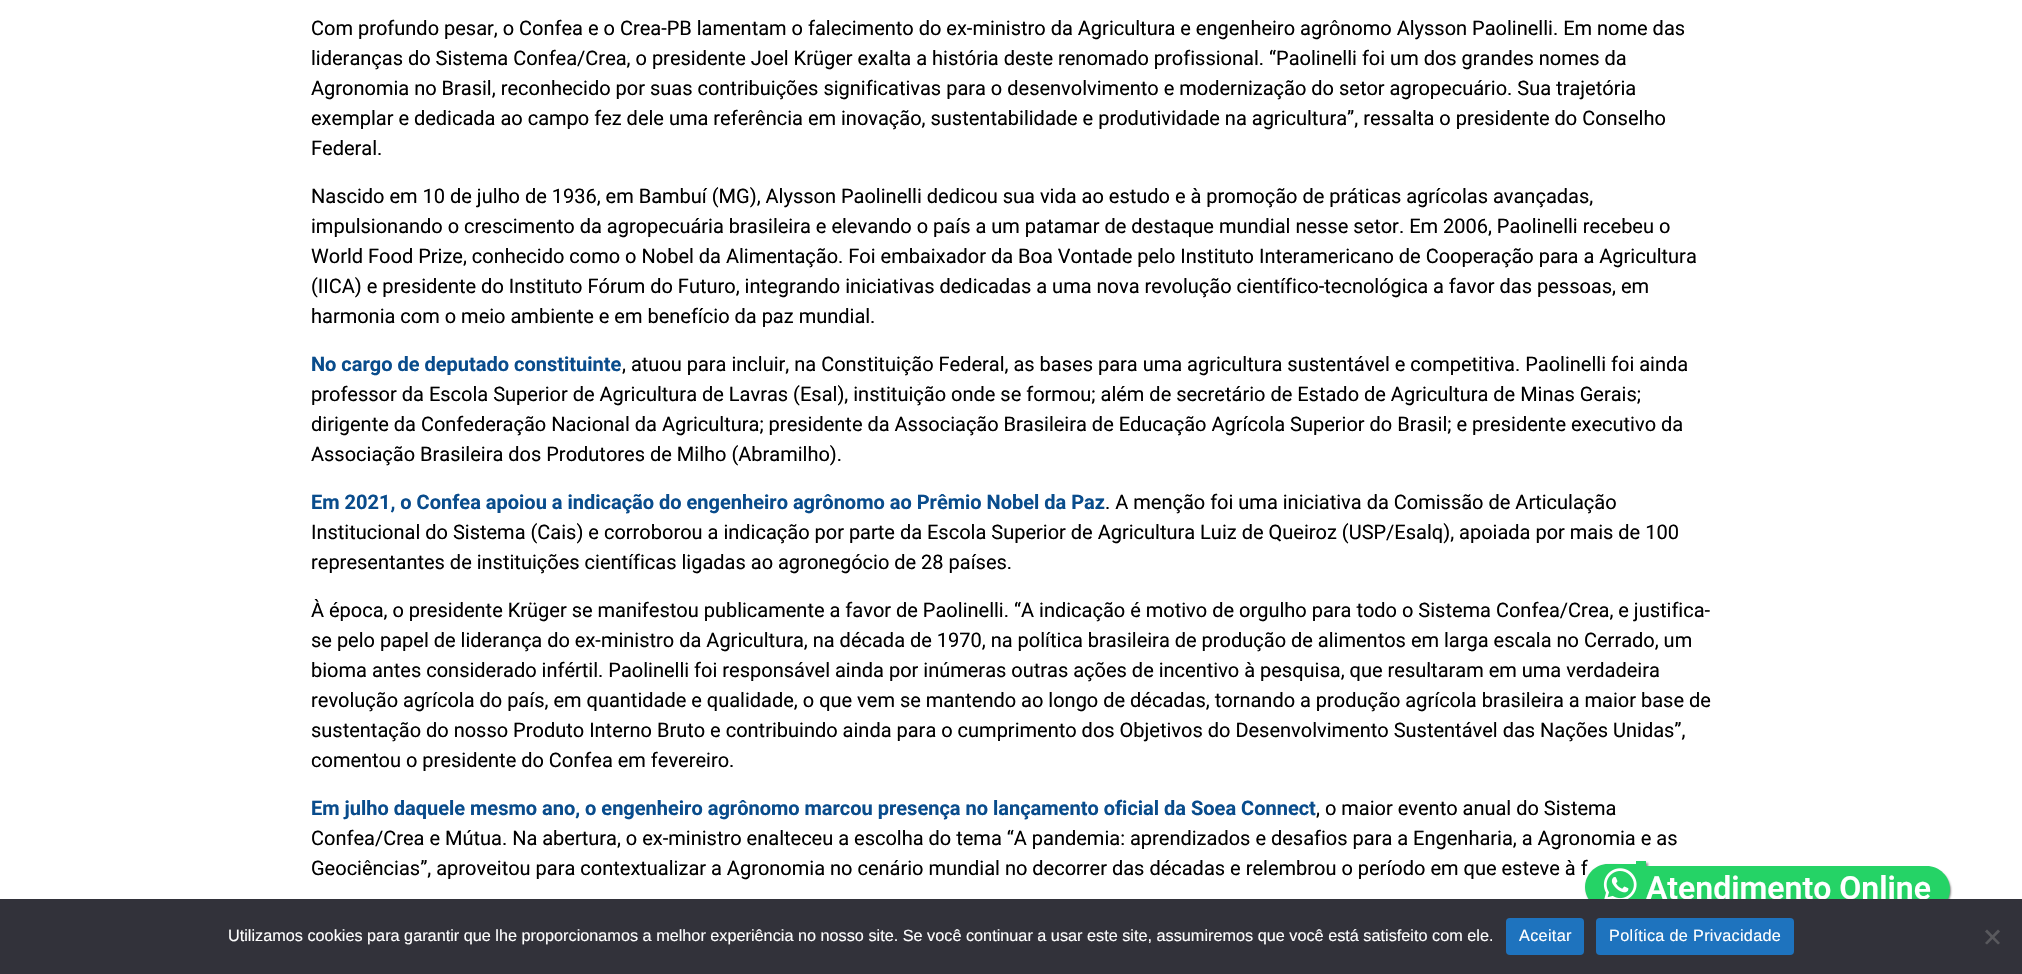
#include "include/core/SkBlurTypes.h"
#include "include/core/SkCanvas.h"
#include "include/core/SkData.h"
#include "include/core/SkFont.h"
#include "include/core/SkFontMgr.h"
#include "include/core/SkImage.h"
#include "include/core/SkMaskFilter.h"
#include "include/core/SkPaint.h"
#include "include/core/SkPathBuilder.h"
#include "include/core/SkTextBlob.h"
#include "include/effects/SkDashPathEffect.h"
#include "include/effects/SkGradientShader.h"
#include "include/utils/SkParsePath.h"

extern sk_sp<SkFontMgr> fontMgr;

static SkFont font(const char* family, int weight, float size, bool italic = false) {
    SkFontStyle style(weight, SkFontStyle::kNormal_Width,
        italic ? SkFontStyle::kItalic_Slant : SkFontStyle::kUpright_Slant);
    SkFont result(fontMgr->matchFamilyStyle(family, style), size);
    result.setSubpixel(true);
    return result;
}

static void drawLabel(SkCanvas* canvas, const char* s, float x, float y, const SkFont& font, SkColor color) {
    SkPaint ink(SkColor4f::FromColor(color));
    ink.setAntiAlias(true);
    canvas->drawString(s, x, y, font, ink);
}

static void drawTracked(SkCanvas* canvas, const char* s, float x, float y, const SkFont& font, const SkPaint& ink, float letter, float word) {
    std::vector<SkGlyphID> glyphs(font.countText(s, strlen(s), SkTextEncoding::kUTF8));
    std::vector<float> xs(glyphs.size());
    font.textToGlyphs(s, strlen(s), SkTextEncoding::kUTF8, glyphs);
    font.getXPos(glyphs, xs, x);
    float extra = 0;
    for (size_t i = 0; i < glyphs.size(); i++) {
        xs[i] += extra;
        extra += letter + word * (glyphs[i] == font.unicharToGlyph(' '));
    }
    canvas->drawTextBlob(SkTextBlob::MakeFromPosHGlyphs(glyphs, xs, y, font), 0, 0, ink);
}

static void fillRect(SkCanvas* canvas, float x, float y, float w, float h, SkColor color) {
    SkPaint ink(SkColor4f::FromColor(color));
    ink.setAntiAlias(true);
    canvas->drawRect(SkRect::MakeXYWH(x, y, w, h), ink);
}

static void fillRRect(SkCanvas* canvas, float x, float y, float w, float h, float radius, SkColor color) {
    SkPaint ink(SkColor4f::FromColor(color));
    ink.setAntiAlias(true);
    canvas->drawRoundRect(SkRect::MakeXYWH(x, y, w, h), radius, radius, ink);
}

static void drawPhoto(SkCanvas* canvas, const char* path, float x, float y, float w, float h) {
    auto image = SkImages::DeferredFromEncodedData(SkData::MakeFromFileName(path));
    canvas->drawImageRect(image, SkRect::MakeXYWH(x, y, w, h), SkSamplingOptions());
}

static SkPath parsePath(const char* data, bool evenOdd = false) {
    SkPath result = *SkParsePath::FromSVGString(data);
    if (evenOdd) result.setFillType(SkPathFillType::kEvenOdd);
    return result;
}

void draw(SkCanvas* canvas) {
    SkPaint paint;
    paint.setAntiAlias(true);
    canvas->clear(0xFFFFFFFF);
    SkFont font1 = font("Roboto", 400, 20);
    drawLabel(canvas, "Com profundo pesar, o Confea e o Crea-PB lamentam o falecimento do ex-ministro da Agricultura e engenheiro agrônomo Alysson Paolinelli. Em nome das", 311, 35, font1, 0xFF000000);
    drawLabel(canvas, "lideranças do Sistema Confea/Crea, o presidente Joel Krüger exalta a história deste renomado profissional. “Paolinelli foi um dos grandes nomes da", 311, 65, font1, 0xFF000000);
    drawLabel(canvas, "Agronomia no Brasil, reconhecido por suas contribuições significativas para o desenvolvimento e modernização do setor agropecuário. Sua trajetória", 311, 95, font1, 0xFF000000);
    drawLabel(canvas, "exemplar e dedicada ao campo fez dele uma referência em inovação, sustentabilidade e produtividade na agricultura”, ressalta o presidente do Conselho", 311, 125, font1, 0xFF000000);
    drawLabel(canvas, "Federal.", 311, 155, font1, 0xFF000000);
    drawLabel(canvas, "Nascido em 10 de julho de 1936, em Bambuí (MG), Alysson Paolinelli dedicou sua vida ao estudo e à promoção de práticas agrícolas avançadas,", 311, 203, font1, 0xFF000000);
    drawLabel(canvas, "impulsionando o crescimento da agropecuária brasileira e elevando o país a um patamar de destaque mundial nesse setor. Em 2006, Paolinelli recebeu o", 311, 233, font1, 0xFF000000);
    drawLabel(canvas, "World Food Prize, conhecido como o Nobel da Alimentação. Foi embaixador da Boa Vontade pelo Instituto Interamericano de Cooperação para a Agricultura", 311, 263, font1, 0xFF000000);
    drawLabel(canvas, "(IICA) e presidente do Instituto Fórum do Futuro, integrando iniciativas dedicadas a uma nova revolução científico-tecnológica a favor das pessoas, em", 311, 293, font1, 0xFF000000);
    drawLabel(canvas, "harmonia com o meio ambiente e em benefício da paz mundial.", 311, 323, font1, 0xFF000000);
    SkFont font2 = font("Roboto", 700, 20);
    drawLabel(canvas, "No cargo de deputado constituinte", 311, 371, font2, 0xFF094C8C);
    drawLabel(canvas, ", atuou para incluir, na Constituição Federal, as bases para uma agricultura sustentável e competitiva. Paolinelli foi ainda", 622, 371, font1, 0xFF000000);
    drawLabel(canvas, "professor da Escola Superior de Agricultura de Lavras (Esal), instituição onde se formou; além de secretário de Estado de Agricultura de Minas Gerais;", 311, 401, font1, 0xFF000000);
    drawLabel(canvas, "dirigente da Confederação Nacional da Agricultura; presidente da Associação Brasileira de Educação Agrícola Superior do Brasil; e presidente executivo da", 311, 431, font1, 0xFF000000);
    drawLabel(canvas, "Associação Brasileira dos Produtores de Milho (Abramilho).", 311, 461, font1, 0xFF000000);
    drawLabel(canvas, "Em 2021, o Confea apoiou a indicação do engenheiro agrônomo ao Prêmio Nobel da Paz", 311, 509, font2, 0xFF094C8C);
    drawLabel(canvas, ". A menção foi uma iniciativa da Comissão de Articulação", 1105, 509, font1, 0xFF000000);
    drawLabel(canvas, "Institucional do Sistema (Cais) e corroborou a indicação por parte da Escola Superior de Agricultura Luiz de Queiroz (USP/Esalq), apoiada por mais de 100", 311, 539, font1, 0xFF000000);
    drawLabel(canvas, "representantes de instituições científicas ligadas ao agronegócio de 28 países.", 311, 569, font1, 0xFF000000);
    drawLabel(canvas, "À época, o presidente Krüger se manifestou publicamente a favor de Paolinelli. “A indicação é motivo de orgulho para todo o Sistema Confea/Crea, e justifica-", 311, 617, font1, 0xFF000000);
    drawLabel(canvas, "se pelo papel de liderança do ex-ministro da Agricultura, na década de 1970, na política brasileira de produção de alimentos em larga escala no Cerrado, um", 311, 647, font1, 0xFF000000);
    drawLabel(canvas, "bioma antes considerado infértil. Paolinelli foi responsável ainda por inúmeras outras ações de incentivo à pesquisa, que resultaram em uma verdadeira", 311, 677, font1, 0xFF000000);
    drawLabel(canvas, "revolução agrícola do país, em quantidade e qualidade, o que vem se mantendo ao longo de décadas, tornando a produção agrícola brasileira a maior base de", 311, 707, font1, 0xFF000000);
    drawLabel(canvas, "sustentação do nosso Produto Interno Bruto e contribuindo ainda para o cumprimento dos Objetivos do Desenvolvimento Sustentável das Nações Unidas”,", 311, 737, font1, 0xFF000000);
    drawLabel(canvas, "comentou o presidente do Confea em fevereiro.", 311, 767, font1, 0xFF000000);
    drawLabel(canvas, "Em julho daquele mesmo ano, o engenheiro agrônomo marcou presença no lançamento oficial da Soea Connect", 311, 815, font2, 0xFF094C8C);
    drawLabel(canvas, ", o maior evento anual do Sistema", 1316, 815, font1, 0xFF000000);
    drawLabel(canvas, "Confea/Crea e Mútua. Na abertura, o ex-ministro enalteceu a escolha do tema “A pandemia: aprendizados e desafios para a Engenharia, a Agronomia e as", 311, 845, font1, 0xFF000000);
    drawLabel(canvas, "Geociências”, aproveitou para contextualizar a Agronomia no cenário mundial no decorrer das décadas e relembrou o período em que esteve à f", 311, 875, font1, 0xFF000000);
    paint.setColor(0xFF888888);
    paint.setMaskFilter(SkMaskFilter::MakeBlur(kNormal_SkBlurStyle, 1));
    canvas->drawRoundRect(SkRect::MakeXYWH(1586, 865, 52, 46), 23, 23, paint);
    paint.setMaskFilter(nullptr);
    paint.setColor(0xFF25D366);
    canvas->drawPath(parsePath("M1608 864H1636V910H1608C1595.5 910 1585 899.5 1585 887C1585 874.5 1595.5 864 1608 864Z"), paint);
    paint.setColor(0xFF888888);
    paint.setMaskFilter(SkMaskFilter::MakeBlur(kNormal_SkBlurStyle, 1));
    canvas->drawRect(SkRect::MakeXYWH(1638, 863, 10, 52), paint);
    paint.setMaskFilter(nullptr);
    fillRect(canvas, 1636, 861, 10, 38, 0xFF25D366);
    paint.setMaskFilter(SkMaskFilter::MakeBlur(kNormal_SkBlurStyle, 1));
    canvas->drawRoundRect(SkRect::MakeXYWH(1648, 868, 303, 46), 23, 23, paint);
    paint.setMaskFilter(nullptr);
    paint.setColor(0xFF25D366);
    canvas->drawPath(parsePath("M1646 866H1926.5C1939.5 866 1950 876.5 1950 889.5C1950 902.5 1939.5 913 1926.5 913H1646Z"), paint);
    drawPhoto(canvas, "assets/img1.png", 1603, 868, 34, 31);
    SkFont font3 = font("Roboto", 600, 32);
    drawLabel(canvas, "Atendimento Online", 1646, 899, font3, 0xFFFFFFFF);
    fillRect(canvas, 0, 899, 2022, 75, 0xFF32323A);
    SkFont font4 = font("Liberation Sans", 400, 16.25f);
    drawLabel(canvas, "Utilizamos cookies para garantir que lhe proporcionamos a melhor experiência no nosso site. Se você continuar a usar este site, assumiremos que você está satisfeito com ele.", 228, 941, font4, 0xFFFFFFFF);
    fillRRect(canvas, 1506, 918, 78, 37, 4, 0xFF1E73BE);
    paint.setColor(0xFFFFFFFF);
    drawTracked(canvas, "Aceitar", 1519, 941, font4, paint, 0.3f, 0);
    fillRRect(canvas, 1596, 918, 198, 37, 4, 0xFF1E73BE);
    drawTracked(canvas, "Política de Privacidade", 1609, 941, font4, paint, 0.3f, 0);
    paint.setColor(0xFF59595D);
    canvas->drawPath(parsePath("M1998 929.5L2000 931.5L1987 944.5L1985 943Z"), paint);
    canvas->drawPath(parsePath("M1985 931.5L1987 929.5L2000 943L1998 944.5Z"), paint);
}
